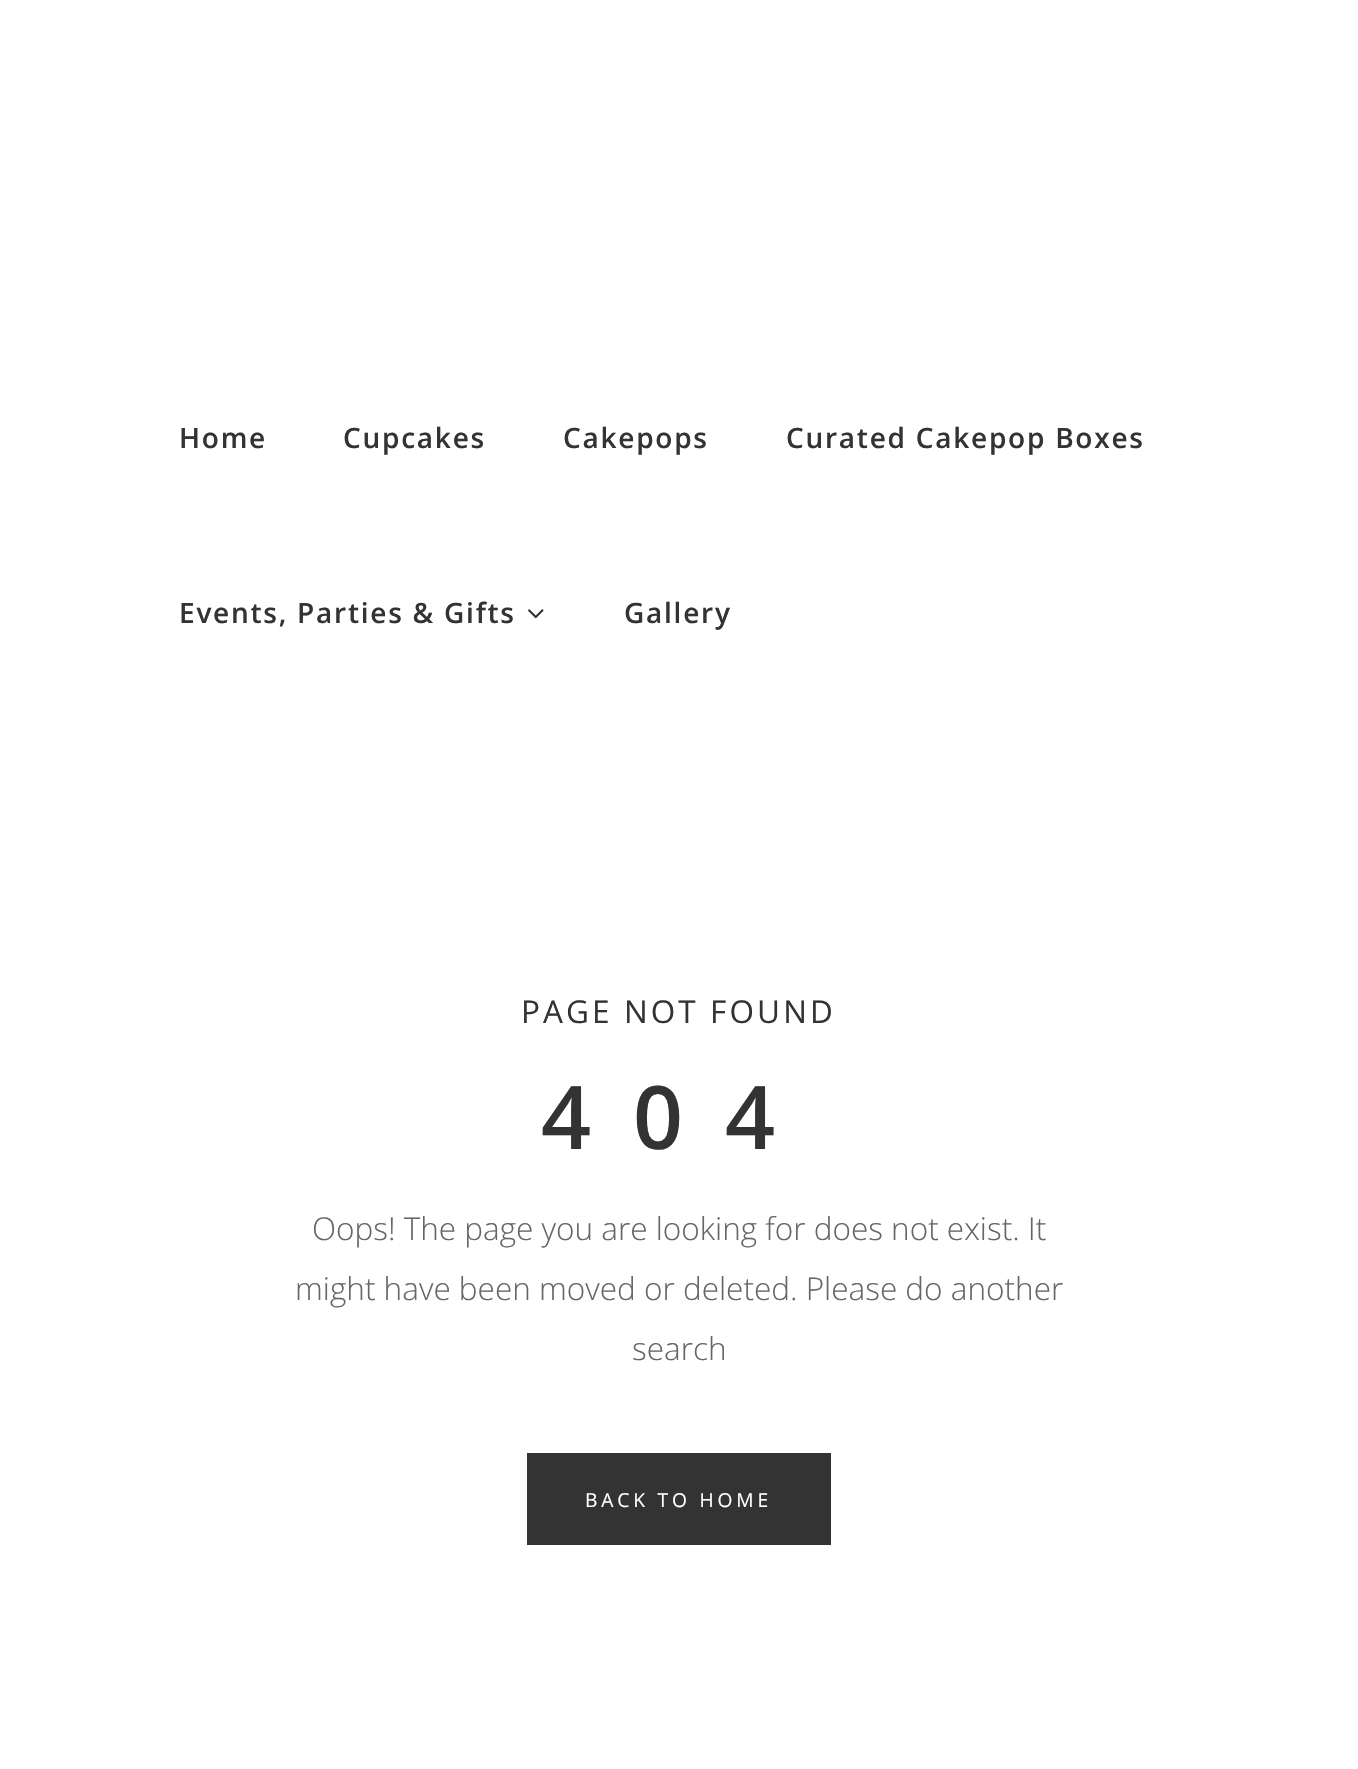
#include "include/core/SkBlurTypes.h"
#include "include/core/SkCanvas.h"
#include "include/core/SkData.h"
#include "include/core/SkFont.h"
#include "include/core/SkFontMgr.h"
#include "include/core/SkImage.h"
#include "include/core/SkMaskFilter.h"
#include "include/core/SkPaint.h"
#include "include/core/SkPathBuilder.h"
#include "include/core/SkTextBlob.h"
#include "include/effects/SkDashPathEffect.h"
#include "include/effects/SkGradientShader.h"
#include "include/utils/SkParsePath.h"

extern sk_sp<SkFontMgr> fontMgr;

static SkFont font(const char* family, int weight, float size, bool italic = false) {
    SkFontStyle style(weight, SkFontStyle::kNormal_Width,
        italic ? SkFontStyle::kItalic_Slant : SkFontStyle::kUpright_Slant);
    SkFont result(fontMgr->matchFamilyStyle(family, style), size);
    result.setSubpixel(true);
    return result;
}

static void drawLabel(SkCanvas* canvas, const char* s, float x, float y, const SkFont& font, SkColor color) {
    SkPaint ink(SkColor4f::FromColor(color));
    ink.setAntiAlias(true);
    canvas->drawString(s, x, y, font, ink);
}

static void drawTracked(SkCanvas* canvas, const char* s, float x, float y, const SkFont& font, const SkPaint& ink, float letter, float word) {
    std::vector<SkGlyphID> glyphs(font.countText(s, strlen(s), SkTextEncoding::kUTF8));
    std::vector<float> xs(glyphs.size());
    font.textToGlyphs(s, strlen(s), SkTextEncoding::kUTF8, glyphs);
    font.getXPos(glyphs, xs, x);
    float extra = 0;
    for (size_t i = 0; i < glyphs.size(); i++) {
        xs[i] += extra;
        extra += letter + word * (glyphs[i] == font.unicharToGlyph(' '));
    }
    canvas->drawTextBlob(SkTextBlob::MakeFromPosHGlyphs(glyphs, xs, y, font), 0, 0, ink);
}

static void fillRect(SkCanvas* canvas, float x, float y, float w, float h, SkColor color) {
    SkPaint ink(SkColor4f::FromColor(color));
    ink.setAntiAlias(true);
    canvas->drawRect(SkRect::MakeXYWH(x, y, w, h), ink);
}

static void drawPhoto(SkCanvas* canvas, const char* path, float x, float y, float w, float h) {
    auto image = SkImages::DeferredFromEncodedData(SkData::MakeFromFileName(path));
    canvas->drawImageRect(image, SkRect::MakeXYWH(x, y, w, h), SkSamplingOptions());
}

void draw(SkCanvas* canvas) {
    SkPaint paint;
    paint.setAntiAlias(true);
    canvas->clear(0xFFFFFFFF);
    SkFont font1 = font("Open Sans", 600, 28);
    paint.setColor(0xFF333333);
    drawTracked(canvas, "Home", 179, 448, font1, paint, 1.75f, 0);
    drawTracked(canvas, "Cupcakes", 343, 448, font1, paint, 1.75f, 0);
    drawTracked(canvas, "Cakepops", 563, 448, font1, paint, 1.75f, 0);
    drawTracked(canvas, "Curated Cakepop Boxes", 786, 448, font1, paint, 1.75f, 0);
    drawTracked(canvas, "Events, Parties & Gifts", 179, 623, font1, paint, 1.75f, 0);
    drawPhoto(canvas, "assets/img1.png", 528, 609, 16, 10);
    drawTracked(canvas, "Gallery", 624, 623, font1, paint, 1.75f, 0);
    SkFont font2 = font("Open Sans", 400, 31.5f);
    drawTracked(canvas, "PAGE NOT FOUND", 521, 1023, font2, paint, 3.1f, 0);
    SkFont font3 = font("Open Sans", 600, 87.5f);
    drawTracked(canvas, "404", 541, 1149, font3, paint, 42, 0);
    SkFont font4 = font("Open Sans", 300, 31.5f);
    drawLabel(canvas, "Oops! The page you are looking for does not exist. It", 312, 1240, font4, 0xFF666666);
    drawLabel(canvas, "might have been moved or deleted. Please do another", 295, 1300, font4, 0xFF666666);
    drawLabel(canvas, "search", 632, 1360, font4, 0xFF666666);
    fillRect(canvas, 527, 1453, 304, 92, 0xFF333333);
    SkFont font5 = font("Open Sans", 400, 19.25f);
    paint.setColor(0xFFFFFFFF);
    drawTracked(canvas, "BACK TO HOME", 585, 1507, font5, paint, 3.8f, 0);
}
